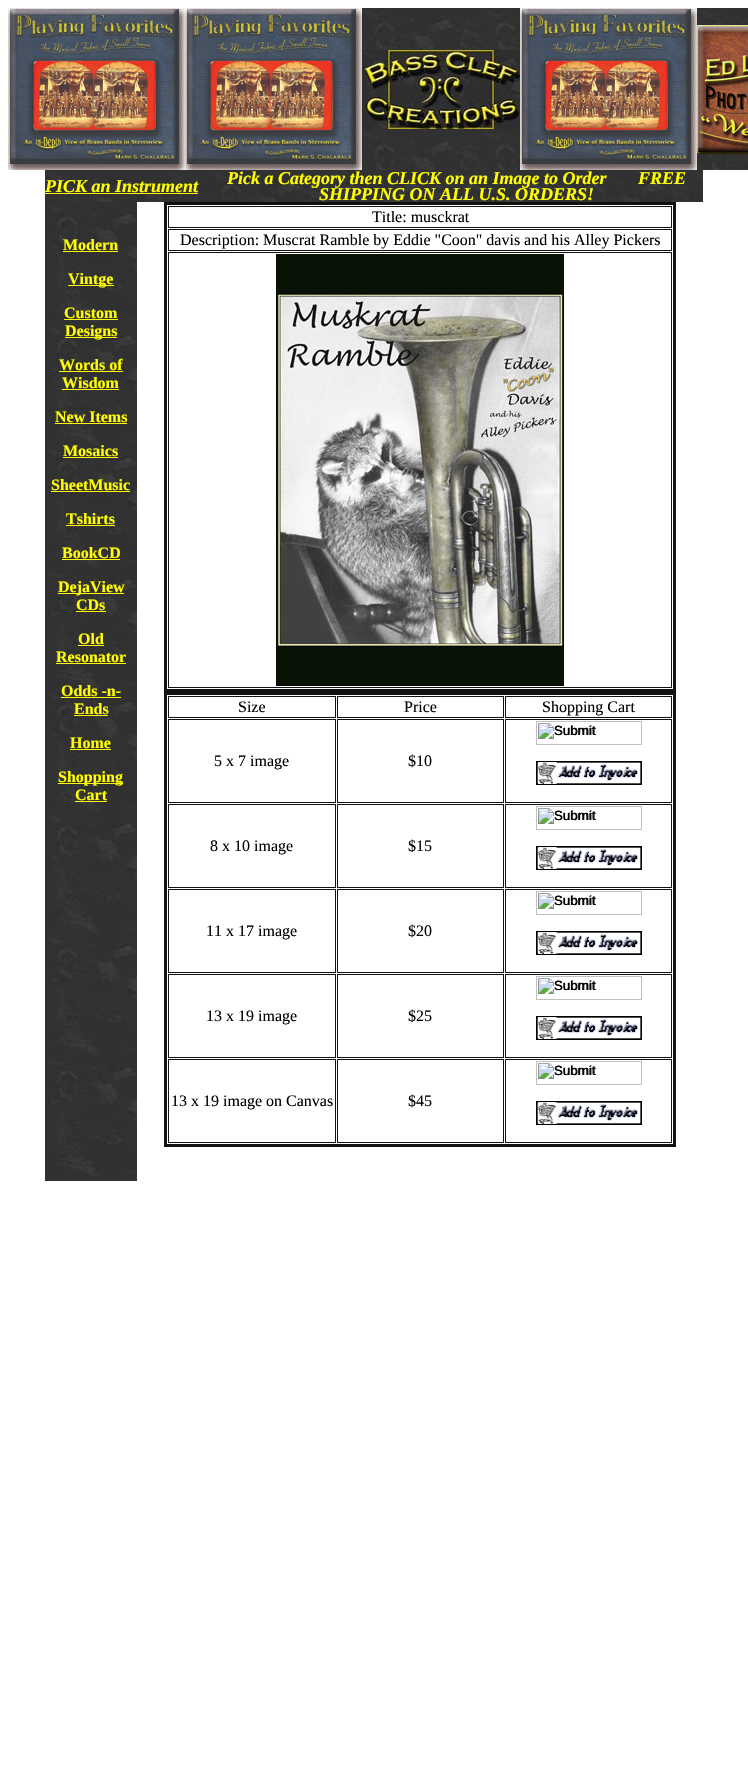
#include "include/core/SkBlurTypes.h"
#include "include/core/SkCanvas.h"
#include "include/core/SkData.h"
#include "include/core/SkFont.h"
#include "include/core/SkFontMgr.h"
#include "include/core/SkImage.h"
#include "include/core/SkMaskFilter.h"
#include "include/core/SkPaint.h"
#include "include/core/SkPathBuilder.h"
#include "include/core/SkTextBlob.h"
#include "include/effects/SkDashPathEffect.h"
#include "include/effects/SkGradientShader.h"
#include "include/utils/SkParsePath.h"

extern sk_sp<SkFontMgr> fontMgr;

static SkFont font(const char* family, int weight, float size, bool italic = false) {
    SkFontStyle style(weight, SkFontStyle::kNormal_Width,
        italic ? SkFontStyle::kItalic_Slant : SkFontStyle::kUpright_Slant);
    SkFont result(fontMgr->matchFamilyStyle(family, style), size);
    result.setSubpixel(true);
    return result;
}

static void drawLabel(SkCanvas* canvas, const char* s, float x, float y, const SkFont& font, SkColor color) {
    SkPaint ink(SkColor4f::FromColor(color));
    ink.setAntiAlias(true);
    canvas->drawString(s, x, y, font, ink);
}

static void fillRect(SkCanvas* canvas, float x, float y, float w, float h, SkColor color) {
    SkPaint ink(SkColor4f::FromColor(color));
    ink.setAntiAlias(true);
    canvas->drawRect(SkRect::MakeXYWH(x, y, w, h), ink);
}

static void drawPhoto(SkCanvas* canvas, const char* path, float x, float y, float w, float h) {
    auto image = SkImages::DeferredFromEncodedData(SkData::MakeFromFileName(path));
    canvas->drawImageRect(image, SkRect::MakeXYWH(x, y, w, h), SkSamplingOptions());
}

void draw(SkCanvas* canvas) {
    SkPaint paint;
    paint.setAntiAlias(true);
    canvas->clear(0xFFFFFFFF);
    drawPhoto(canvas, "assets/img1.png", 8, 8, 177, 162);
    drawPhoto(canvas, "assets/img1.png", 185, 8, 177, 162);
    drawPhoto(canvas, "assets/img2.png", 362, 8, 158, 162);
    drawPhoto(canvas, "assets/img3.png", 362, 50, 158, 79);
    drawPhoto(canvas, "assets/img1.png", 520, 8, 177, 162);
    drawPhoto(canvas, "assets/img4.png", 697, 8, 51, 162);
    drawPhoto(canvas, "assets/img5.png", 697, 25, 51, 129);
    drawPhoto(canvas, "assets/img6.png", 45, 170, 164, 32);
    SkFont font1 = font("Liberation Serif", 700, 18, true);
    drawLabel(canvas, "PICK an Instrument", 45, 192, font1, 0xFFFFFF00);
    fillRect(canvas, 45, 193, 153, 1, 0xFFFFFF00);
    drawPhoto(canvas, "assets/img7.png", 209, 170, 494, 32);
    drawLabel(canvas, "Pick a Category then CLICK on an Image to Order", 227, 184, font1, 0xFFFFFF00);
    drawLabel(canvas, "FREE", 638, 184, font1, 0xFFFFFF00);
    drawLabel(canvas, "SHIPPING ON ALL U.S. ORDERS!", 319, 200, font1, 0xFFFFFF00);
    drawPhoto(canvas, "assets/img8.png", 45, 202, 92, 979);
    SkFont font2 = font("Liberation Serif", 700, 16);
    drawLabel(canvas, "Modern", 63, 250, font2, 0xFFFFFF00);
    fillRect(canvas, 63, 251, 55, 1, 0xFFFFFF00);
    fillRect(canvas, 68, 285, 46, 1, 0xFFFFFF00);
    drawLabel(canvas, "Vintge", 68, 284, font2, 0xFFFFFF00);
    drawLabel(canvas, "Custom", 64, 318, font2, 0xFFFFFF00);
    fillRect(canvas, 64, 319, 54, 1, 0xFFFFFF00);
    fillRect(canvas, 65, 337, 52, 1, 0xFFFFFF00);
    drawLabel(canvas, "Designs", 65, 336, font2, 0xFFFFFF00);
    drawLabel(canvas, "Words of", 59, 370, font2, 0xFFFFFF00);
    fillRect(canvas, 59, 371, 64, 1, 0xFFFFFF00);
    drawLabel(canvas, "Wisdom", 62, 388, font2, 0xFFFFFF00);
    fillRect(canvas, 62, 389, 57, 1, 0xFFFFFF00);
    drawLabel(canvas, "New Items", 55, 422, font2, 0xFFFFFF00);
    fillRect(canvas, 55, 423, 72, 1, 0xFFFFFF00);
    drawLabel(canvas, "Mosaics", 63, 456, font2, 0xFFFFFF00);
    fillRect(canvas, 63, 457, 55, 1, 0xFFFFFF00);
    drawLabel(canvas, "SheetMusic", 51, 490, font2, 0xFFFFFF00);
    fillRect(canvas, 51, 491, 79, 1, 0xFFFFFF00);
    drawLabel(canvas, "Tshirts", 66, 524, font2, 0xFFFFFF00);
    fillRect(canvas, 66, 525, 49, 1, 0xFFFFFF00);
    drawLabel(canvas, "BookCD", 62, 558, font2, 0xFFFFFF00);
    fillRect(canvas, 62, 559, 58, 1, 0xFFFFFF00);
    fillRect(canvas, 58, 593, 66, 1, 0xFFFFFF00);
    drawLabel(canvas, "DejaView", 58, 592, font2, 0xFFFFFF00);
    drawLabel(canvas, "CDs", 76, 610, font2, 0xFFFFFF00);
    fillRect(canvas, 76, 611, 30, 1, 0xFFFFFF00);
    drawLabel(canvas, "Old", 78, 644, font2, 0xFFFFFF00);
    fillRect(canvas, 78, 645, 26, 1, 0xFFFFFF00);
    drawLabel(canvas, "Resonator", 56, 662, font2, 0xFFFFFF00);
    fillRect(canvas, 56, 663, 70, 1, 0xFFFFFF00);
    drawLabel(canvas, "Odds -n-", 61, 696, font2, 0xFFFFFF00);
    fillRect(canvas, 61, 697, 60, 1, 0xFFFFFF00);
    drawLabel(canvas, "Ends", 74, 714, font2, 0xFFFFFF00);
    fillRect(canvas, 74, 715, 34, 1, 0xFFFFFF00);
    drawLabel(canvas, "Home", 70, 748, font2, 0xFFFFFF00);
    fillRect(canvas, 70, 749, 41, 1, 0xFFFFFF00);
    fillRect(canvas, 58, 783, 65, 1, 0xFFFFFF00);
    drawLabel(canvas, "Shopping", 58, 782, font2, 0xFFFFFF00);
    drawLabel(canvas, "Cart", 75, 800, font2, 0xFFFFFF00);
    fillRect(canvas, 75, 801, 32, 1, 0xFFFFFF00);
    paint.setStroke(true);
    paint.setStrokeWidth(3);
    paint.setColor(0xFF111111);
    canvas->drawRect(SkRect::MakeXYWH(165.5f, 203.5f, 509, 487), paint);
    paint.setStrokeWidth(1);
    canvas->drawRect(SkRect::MakeXYWH(168.5f, 206.5f, 503, 21), paint);
    SkFont font3 = font("Liberation Serif", 400, 16);
    drawLabel(canvas, "Title: musckrat", 372, 222, font3, 0xFF000000);
    canvas->drawRect(SkRect::MakeXYWH(168.5f, 229.5f, 503, 21), paint);
    drawLabel(canvas, "Description: Muscrat Ramble by Eddie \"Coon\" davis and his Alley Pickers", 180, 245, font3, 0xFF000000);
    canvas->drawRect(SkRect::MakeXYWH(168.5f, 252.5f, 503, 435), paint);
    drawPhoto(canvas, "assets/img9.png", 276, 254, 288, 432);
    paint.setStrokeWidth(3);
    canvas->drawRect(SkRect::MakeXYWH(165.5f, 693.5f, 509, 452), paint);
    paint.setStrokeWidth(1);
    canvas->drawRect(SkRect::MakeXYWH(168.5f, 696.5f, 167, 21), paint);
    drawLabel(canvas, "Size", 238, 712, font3, 0xFF000000);
    canvas->drawRect(SkRect::MakeXYWH(337.5f, 696.5f, 166, 21), paint);
    drawLabel(canvas, "Price", 404, 712, font3, 0xFF000000);
    canvas->drawRect(SkRect::MakeXYWH(505.5f, 696.5f, 166, 21), paint);
    drawLabel(canvas, "Shopping Cart", 542, 712, font3, 0xFF000000);
    canvas->drawRect(SkRect::MakeXYWH(505.5f, 719.5f, 166, 83), paint);
    drawPhoto(canvas, "assets/img10.png", 536, 721, 106, 24);
    SkFont font4 = font("Liberation Sans", 400, 13.5f);
    drawLabel(canvas, "Submit", 554, 735, font4, 0xFF000000);
    drawPhoto(canvas, "assets/img11.png", 536, 761, 106, 24);
    canvas->drawRect(SkRect::MakeXYWH(168.5f, 719.5f, 167, 83), paint);
    drawLabel(canvas, "5 x 7 image", 214, 766, font3, 0xFF000000);
    canvas->drawRect(SkRect::MakeXYWH(337.5f, 719.5f, 166, 83), paint);
    drawLabel(canvas, "$10", 408, 766, font3, 0xFF000000);
    canvas->drawRect(SkRect::MakeXYWH(505.5f, 804.5f, 166, 83), paint);
    drawPhoto(canvas, "assets/img10.png", 536, 806, 106, 24);
    drawLabel(canvas, "Submit", 554, 820, font4, 0xFF000000);
    drawPhoto(canvas, "assets/img11.png", 536, 846, 106, 24);
    canvas->drawRect(SkRect::MakeXYWH(168.5f, 804.5f, 167, 83), paint);
    drawLabel(canvas, "8 x 10 image", 210, 851, font3, 0xFF000000);
    canvas->drawRect(SkRect::MakeXYWH(337.5f, 804.5f, 166, 83), paint);
    drawLabel(canvas, "$15", 408, 851, font3, 0xFF000000);
    canvas->drawRect(SkRect::MakeXYWH(505.5f, 889.5f, 166, 83), paint);
    drawPhoto(canvas, "assets/img10.png", 536, 891, 106, 24);
    drawLabel(canvas, "Submit", 554, 905, font4, 0xFF000000);
    drawPhoto(canvas, "assets/img11.png", 536, 931, 106, 24);
    canvas->drawRect(SkRect::MakeXYWH(168.5f, 889.5f, 167, 83), paint);
    drawLabel(canvas, "11 x 17 image", 206, 936, font3, 0xFF000000);
    canvas->drawRect(SkRect::MakeXYWH(337.5f, 889.5f, 166, 83), paint);
    drawLabel(canvas, "$20", 408, 936, font3, 0xFF000000);
    canvas->drawRect(SkRect::MakeXYWH(505.5f, 974.5f, 166, 83), paint);
    drawPhoto(canvas, "assets/img10.png", 536, 976, 106, 24);
    drawLabel(canvas, "Submit", 554, 990, font4, 0xFF000000);
    drawPhoto(canvas, "assets/img11.png", 536, 1016, 106, 24);
    canvas->drawRect(SkRect::MakeXYWH(168.5f, 974.5f, 167, 83), paint);
    drawLabel(canvas, "13 x 19 image", 206, 1021, font3, 0xFF000000);
    canvas->drawRect(SkRect::MakeXYWH(337.5f, 974.5f, 166, 83), paint);
    drawLabel(canvas, "$25", 408, 1021, font3, 0xFF000000);
    canvas->drawRect(SkRect::MakeXYWH(505.5f, 1059.5f, 166, 83), paint);
    drawPhoto(canvas, "assets/img10.png", 536, 1061, 106, 24);
    drawLabel(canvas, "Submit", 554, 1075, font4, 0xFF000000);
    drawPhoto(canvas, "assets/img11.png", 536, 1101, 106, 24);
    canvas->drawRect(SkRect::MakeXYWH(168.5f, 1059.5f, 167, 83), paint);
    drawLabel(canvas, "13 x 19 image on Canvas", 171, 1106, font3, 0xFF000000);
    canvas->drawRect(SkRect::MakeXYWH(337.5f, 1059.5f, 166, 83), paint);
    drawLabel(canvas, "$45", 408, 1106, font3, 0xFF000000);
}
